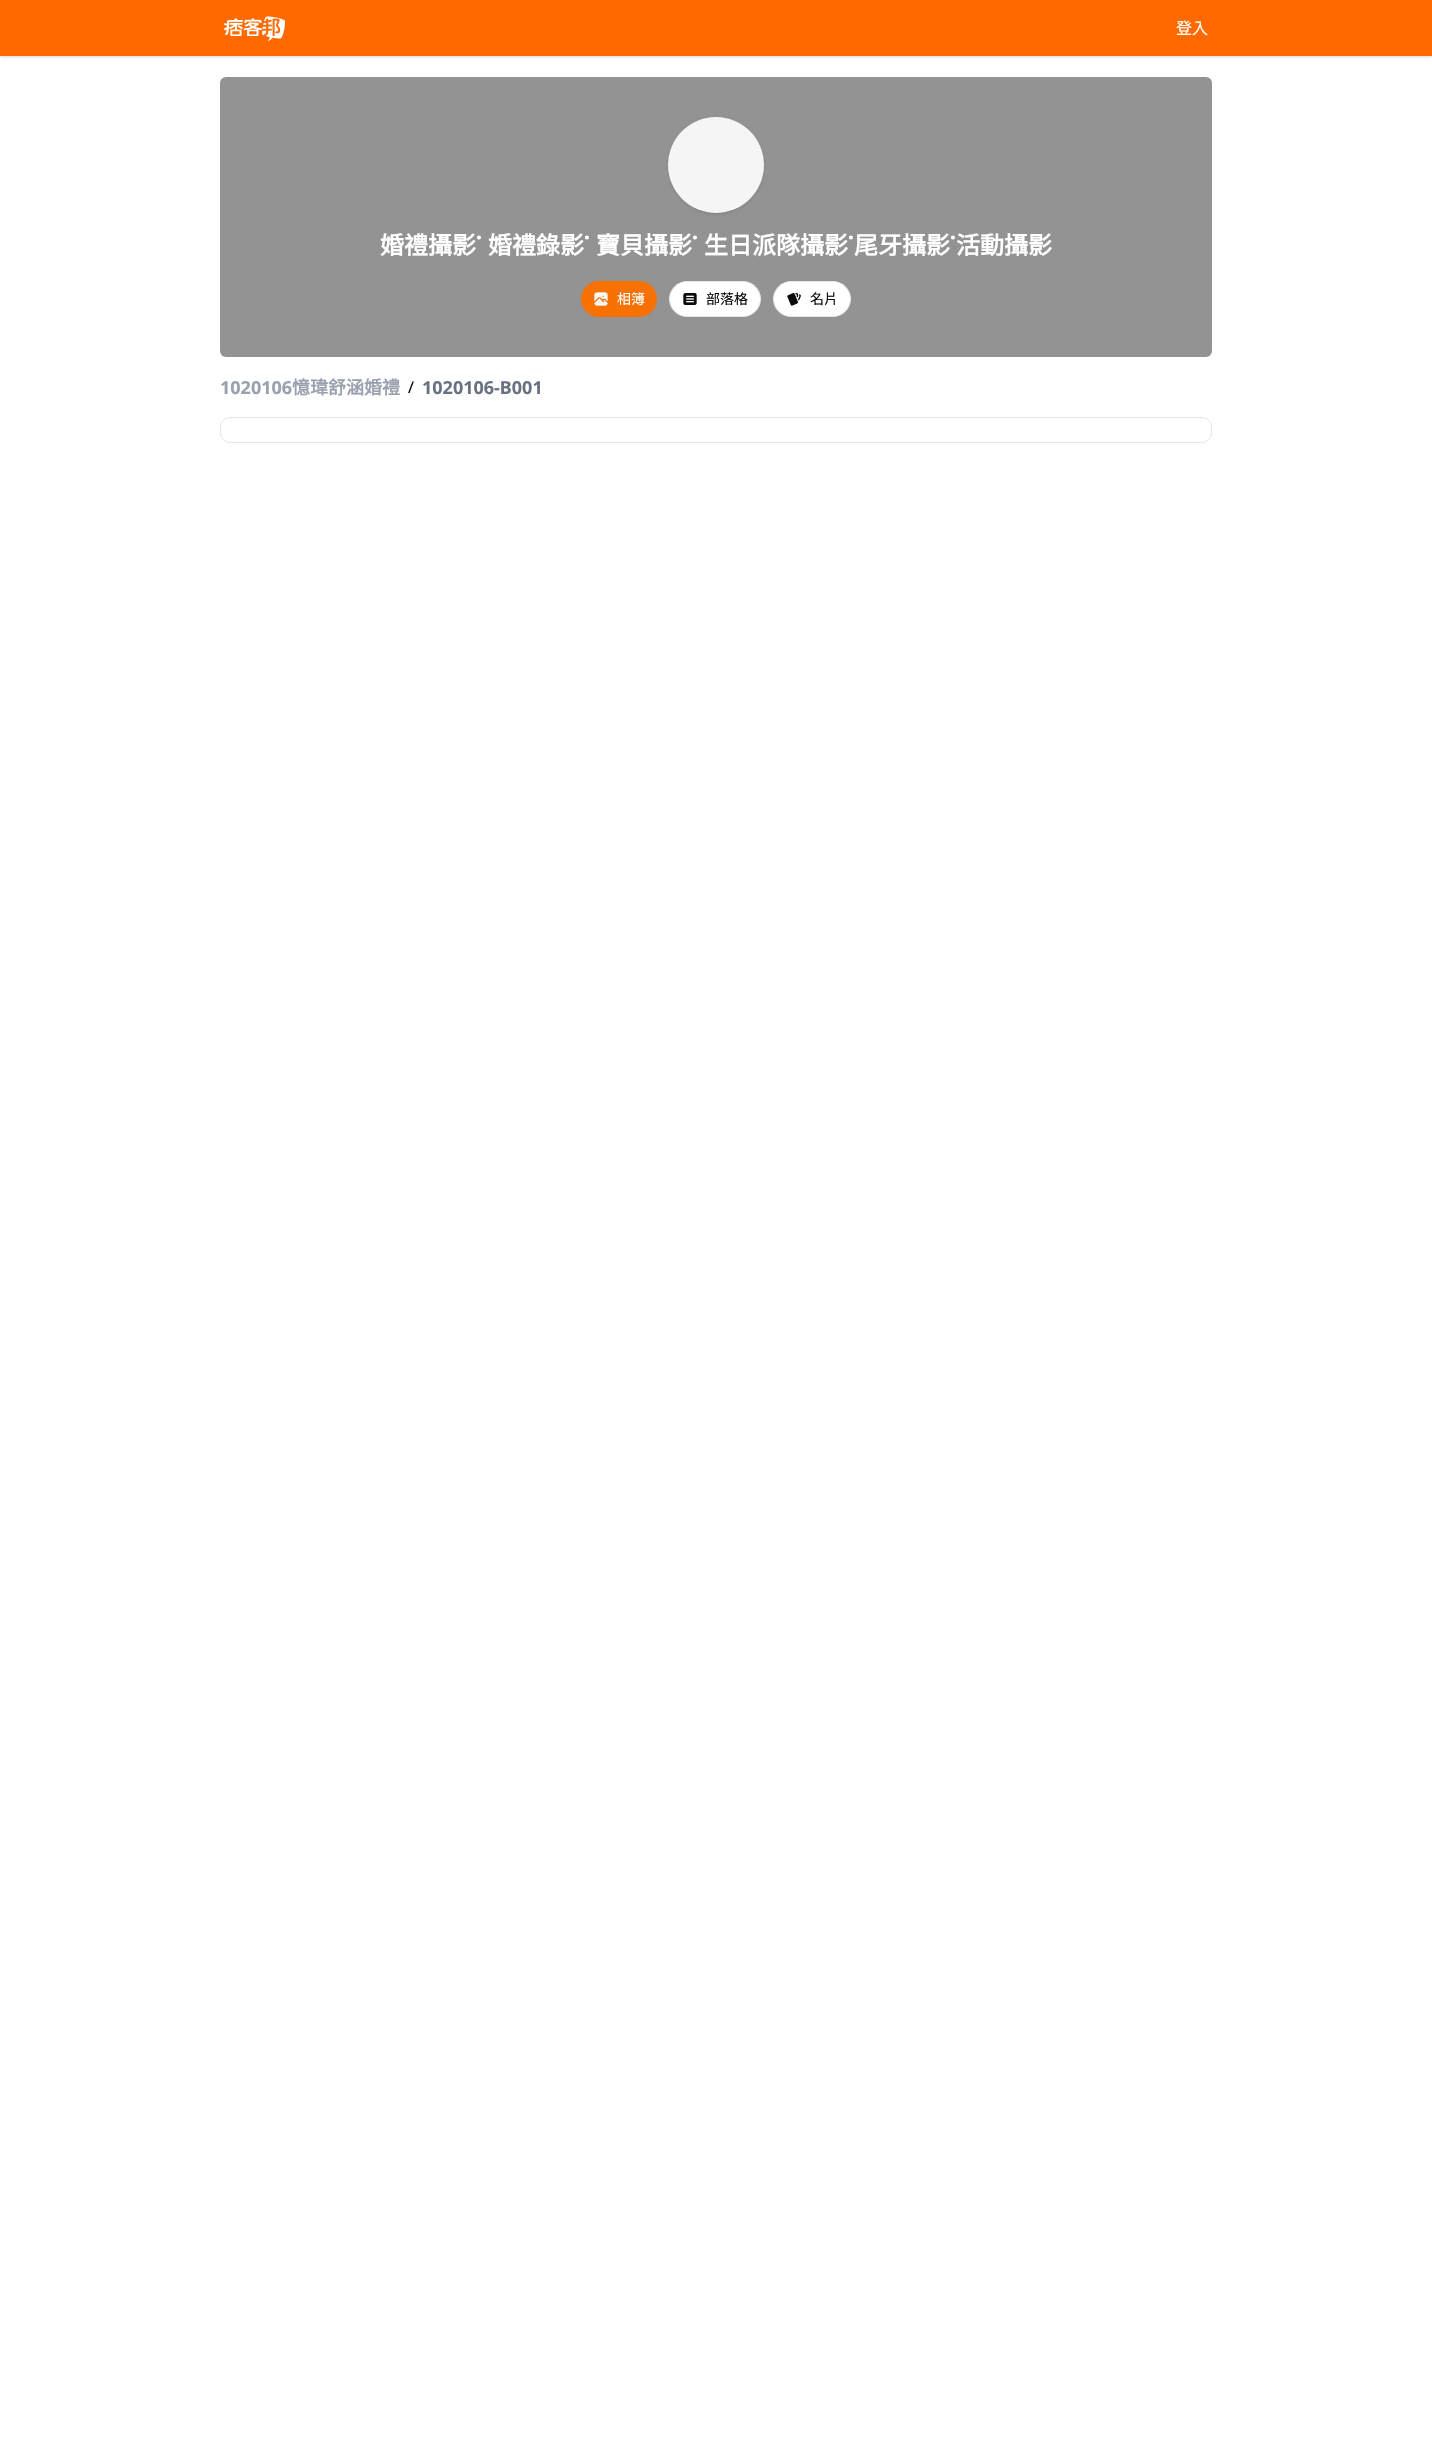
#include "include/core/SkBlurTypes.h"
#include "include/core/SkCanvas.h"
#include "include/core/SkData.h"
#include "include/core/SkFont.h"
#include "include/core/SkFontMgr.h"
#include "include/core/SkImage.h"
#include "include/core/SkMaskFilter.h"
#include "include/core/SkPaint.h"
#include "include/core/SkPathBuilder.h"
#include "include/core/SkTextBlob.h"
#include "include/effects/SkDashPathEffect.h"
#include "include/effects/SkGradientShader.h"
#include "include/utils/SkParsePath.h"

extern sk_sp<SkFontMgr> fontMgr;

static SkFont font(const char* family, int weight, float size, bool italic = false) {
    SkFontStyle style(weight, SkFontStyle::kNormal_Width,
        italic ? SkFontStyle::kItalic_Slant : SkFontStyle::kUpright_Slant);
    SkFont result(fontMgr->matchFamilyStyle(family, style), size);
    result.setSubpixel(true);
    return result;
}

static void drawLabel(SkCanvas* canvas, const char* s, float x, float y, const SkFont& font, SkColor color) {
    SkPaint ink(SkColor4f::FromColor(color));
    ink.setAntiAlias(true);
    canvas->drawString(s, x, y, font, ink);
}

static void fillRect(SkCanvas* canvas, float x, float y, float w, float h, SkColor color) {
    SkPaint ink(SkColor4f::FromColor(color));
    ink.setAntiAlias(true);
    canvas->drawRect(SkRect::MakeXYWH(x, y, w, h), ink);
}

static void fillRRect(SkCanvas* canvas, float x, float y, float w, float h, float radius, SkColor color) {
    SkPaint ink(SkColor4f::FromColor(color));
    ink.setAntiAlias(true);
    canvas->drawRoundRect(SkRect::MakeXYWH(x, y, w, h), radius, radius, ink);
}

static void drawPhoto(SkCanvas* canvas, const char* path, float x, float y, float w, float h) {
    auto image = SkImages::DeferredFromEncodedData(SkData::MakeFromFileName(path));
    canvas->drawImageRect(image, SkRect::MakeXYWH(x, y, w, h), SkSamplingOptions());
}

void draw(SkCanvas* canvas) {
    SkPaint paint;
    paint.setAntiAlias(true);
    canvas->clear(0xFFFFFFFF);
    paint.setColor(0x1A000000);
    paint.setMaskFilter(SkMaskFilter::MakeBlur(kNormal_SkBlurStyle, 1));
    canvas->drawRect(SkRect::MakeXYWH(1, 2, 1430, 54), paint);
    paint.setMaskFilter(nullptr);
    paint.setMaskFilter(SkMaskFilter::MakeBlur(kNormal_SkBlurStyle, 1.5f));
    canvas->drawRect(SkRect::MakeXYWH(0, 1, 1432, 56), paint);
    paint.setMaskFilter(nullptr);
    fillRect(canvas, 0, 0, 1432, 56, 0xFFFF6900);
    drawPhoto(canvas, "assets/img1.png", 224, 16, 61, 25);
    SkFont font1 = font("Noto Sans CJK TC", 400, 16);
    drawLabel(canvas, "登入", 1176, 34, font1, 0xFFFFFFFF);
    fillRRect(canvas, 220, 77, 992, 280, 6, 0xFF939393);
    paint.setMaskFilter(SkMaskFilter::MakeBlur(kNormal_SkBlurStyle, 1));
    canvas->drawRoundRect(SkRect::MakeXYWH(669, 119, 94, 94), 47, 47, paint);
    paint.setMaskFilter(nullptr);
    paint.setMaskFilter(SkMaskFilter::MakeBlur(kNormal_SkBlurStyle, 1.5f));
    canvas->drawRoundRect(SkRect::MakeXYWH(668, 118, 96, 96), 48, 48, paint);
    paint.setMaskFilter(nullptr);
    paint.setColor(0xFFF5F5F5);
    canvas->drawCircle(716, 165, 48, paint);
    SkFont font2 = font("Noto Sans CJK TC", 700, 24);
    drawLabel(canvas, "婚禮攝影", 380, 254, font2, 0xFFFFFFFF);
    SkFont font3 = font("Noto Sans", 700, 24);
    drawLabel(canvas, "˙", 476, 254, font3, 0xFFFFFFFF);
    drawLabel(canvas, "婚禮錄影", 488, 254, font2, 0xFFFFFFFF);
    drawLabel(canvas, "˙", 584, 254, font3, 0xFFFFFFFF);
    drawLabel(canvas, "寶貝攝影", 596, 254, font2, 0xFFFFFFFF);
    drawLabel(canvas, "˙", 692, 254, font3, 0xFFFFFFFF);
    drawLabel(canvas, "生日派隊攝影", 704, 254, font2, 0xFFFFFFFF);
    drawLabel(canvas, "˙", 848, 254, font3, 0xFFFFFFFF);
    drawLabel(canvas, "尾牙攝影", 854, 254, font2, 0xFFFFFFFF);
    drawLabel(canvas, "˙", 950, 254, font3, 0xFFFFFFFF);
    drawLabel(canvas, "活動攝影", 956, 254, font2, 0xFFFFFFFF);
    fillRRect(canvas, 581, 281, 76, 36, 18, 0xFFF87103);
    drawPhoto(canvas, "assets/img2.png", 594, 292, 14, 14);
    SkFont font4 = font("Noto Sans CJK TC", 400, 14);
    drawLabel(canvas, "相簿", 617, 304, font4, 0xFFFFFFFF);
    paint.setColor(0xFFFFFFFF);
    canvas->drawRoundRect(SkRect::MakeXYWH(669.5f, 281.5f, 91, 35), 17.5f, 17.5f, paint);
    paint.setStroke(true);
    paint.setStrokeWidth(1);
    paint.setColor(0xFFE5E5E5);
    canvas->drawRoundRect(SkRect::MakeXYWH(669.5f, 281.5f, 91, 35), 17.5f, 17.5f, paint);
    drawPhoto(canvas, "assets/img3.png", 683, 293, 14, 12);
    drawLabel(canvas, "部落格", 706, 304, font4, 0xFF0A0A0A);
    paint.setStroke(false);
    paint.setColor(0xFFFFFFFF);
    canvas->drawRoundRect(SkRect::MakeXYWH(773.5f, 281.5f, 77, 35), 17.5f, 17.5f, paint);
    paint.setStroke(true);
    paint.setColor(0xFFE5E5E5);
    canvas->drawRoundRect(SkRect::MakeXYWH(773.5f, 281.5f, 77, 35), 17.5f, 17.5f, paint);
    drawPhoto(canvas, "assets/img4.png", 787, 293, 14, 13);
    drawLabel(canvas, "名片", 810, 304, font4, 0xFF0A0A0A);
    SkFont font5 = font("Noto Sans", 700, 18);
    drawLabel(canvas, "1020106", 220, 394, font5, 0xFF99A1AF);
    SkFont font6 = font("Noto Sans CJK TC", 700, 18);
    drawLabel(canvas, "憶瑋舒涵婚禮", 292, 394, font6, 0xFF99A1AF);
    SkFont font7 = font("Noto Sans", 400, 16);
    drawLabel(canvas, "/", 408, 393, font7, 0xFF0A0A0A);
    drawLabel(canvas, "1020106-B001", 422, 394, font5, 0xFF6A7282);
    canvas->drawRoundRect(SkRect::MakeXYWH(220.5f, 417.5f, 991, 25), 9.5f, 9.5f, paint);
}
